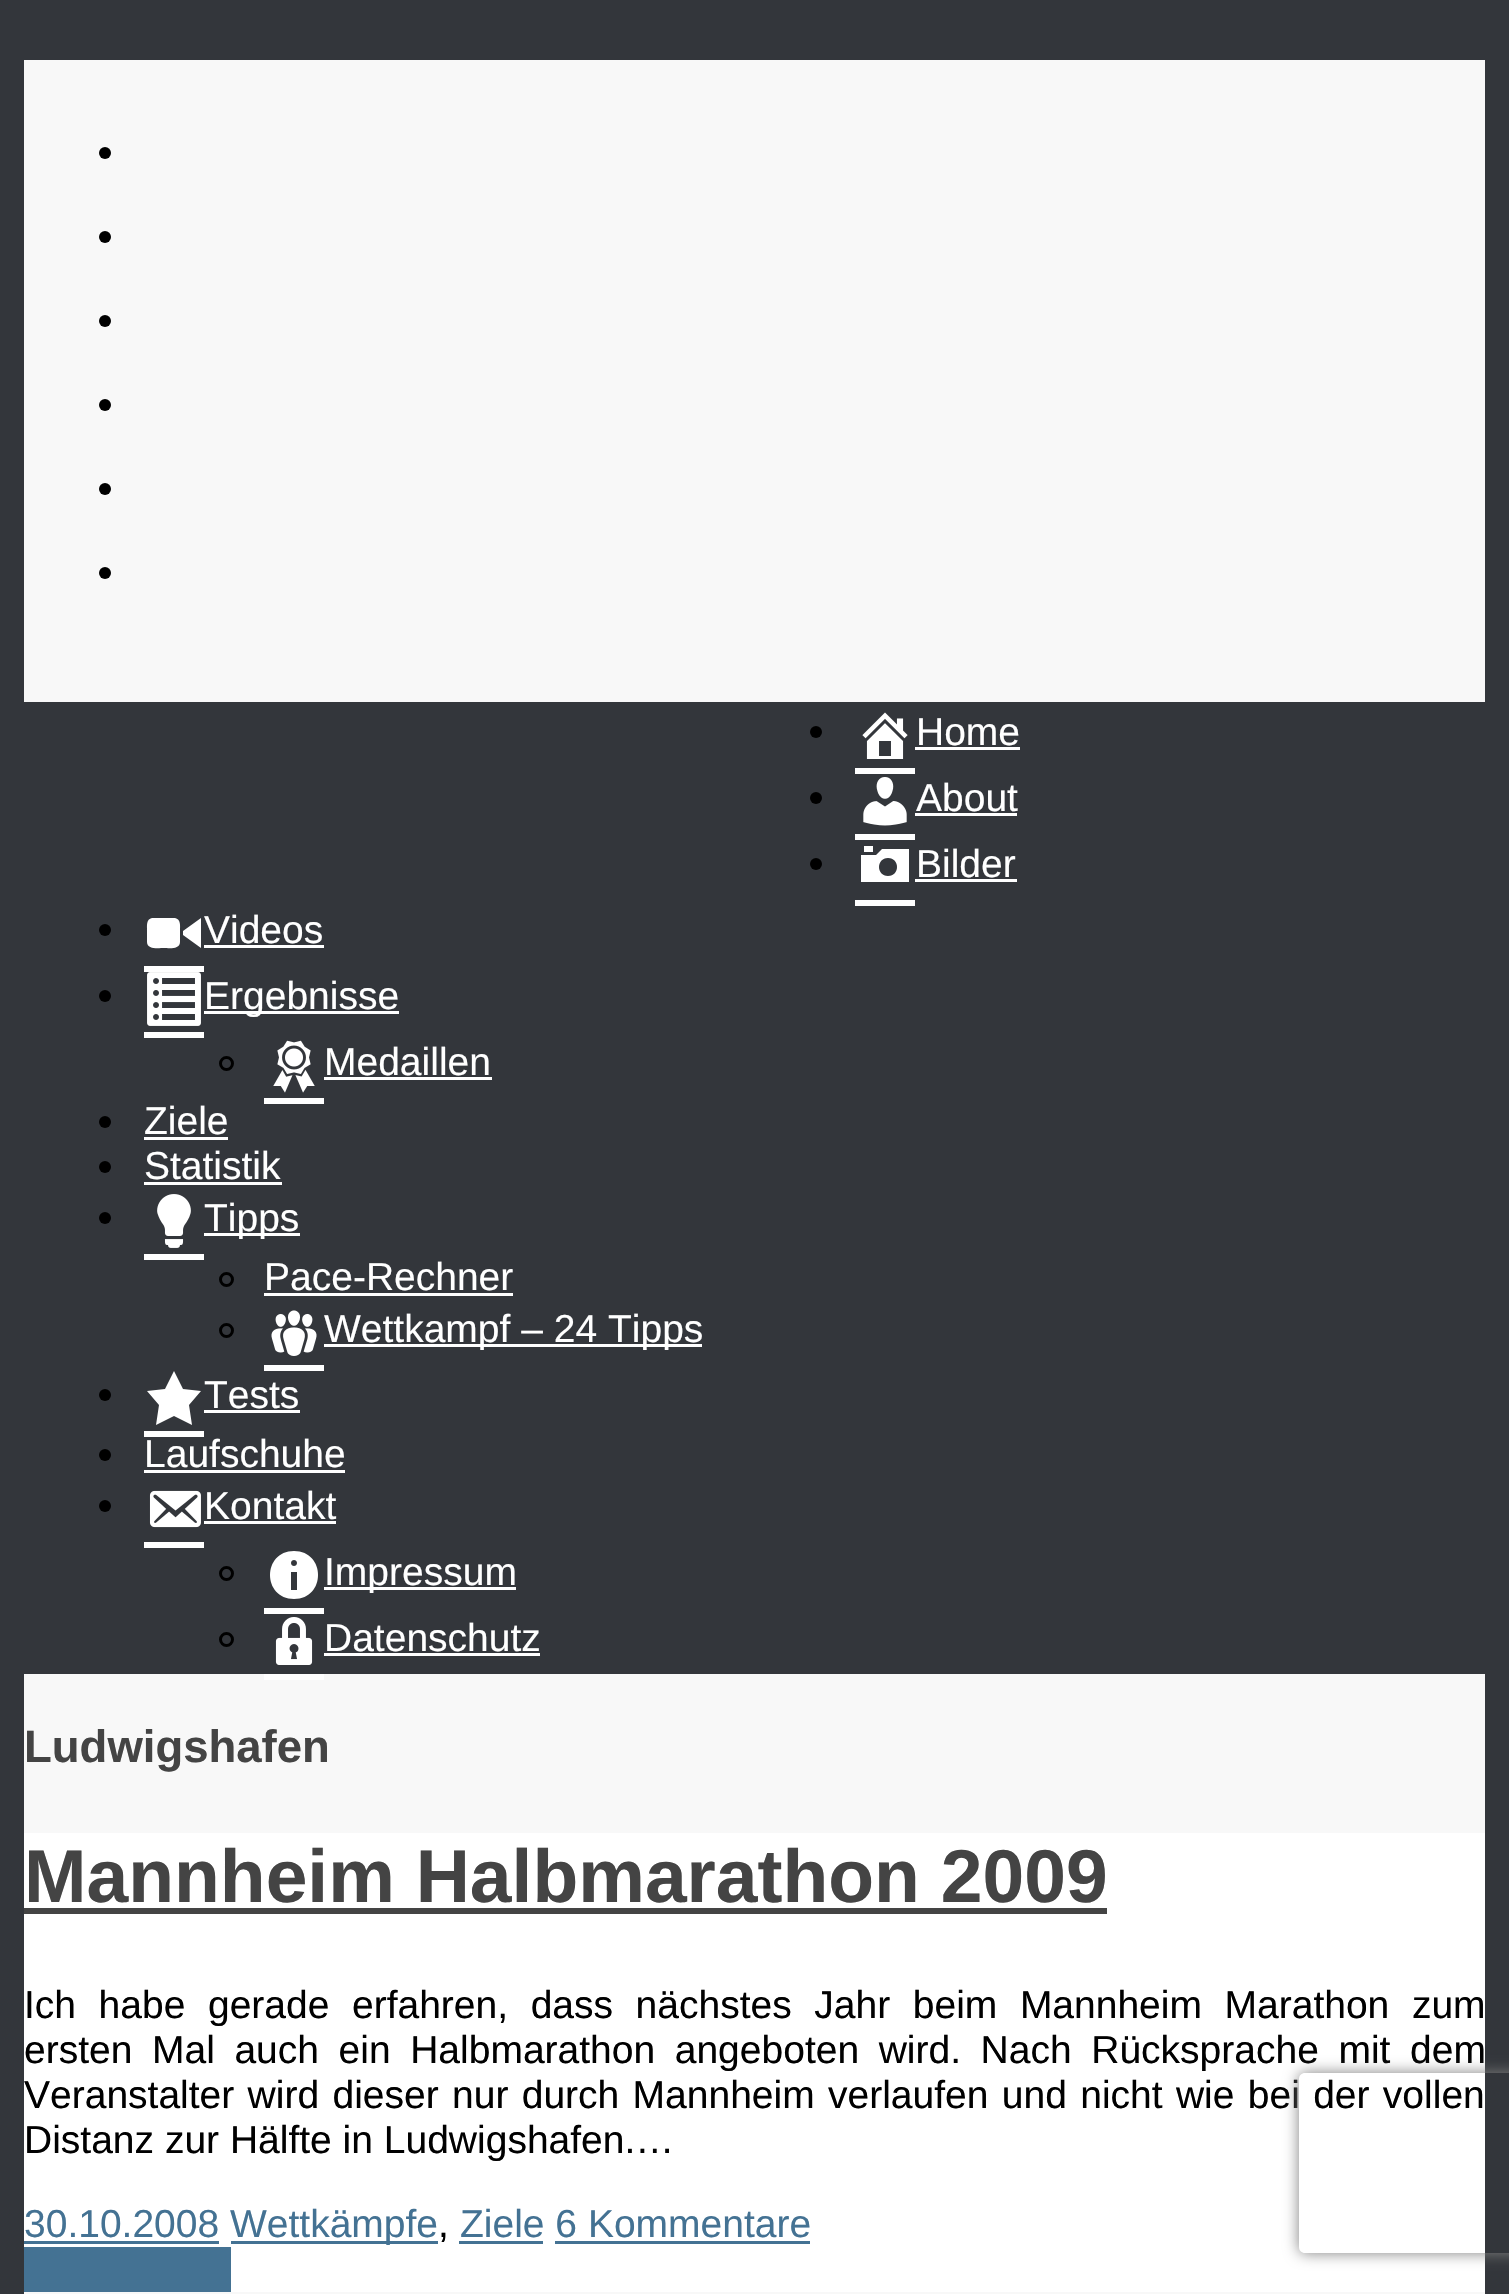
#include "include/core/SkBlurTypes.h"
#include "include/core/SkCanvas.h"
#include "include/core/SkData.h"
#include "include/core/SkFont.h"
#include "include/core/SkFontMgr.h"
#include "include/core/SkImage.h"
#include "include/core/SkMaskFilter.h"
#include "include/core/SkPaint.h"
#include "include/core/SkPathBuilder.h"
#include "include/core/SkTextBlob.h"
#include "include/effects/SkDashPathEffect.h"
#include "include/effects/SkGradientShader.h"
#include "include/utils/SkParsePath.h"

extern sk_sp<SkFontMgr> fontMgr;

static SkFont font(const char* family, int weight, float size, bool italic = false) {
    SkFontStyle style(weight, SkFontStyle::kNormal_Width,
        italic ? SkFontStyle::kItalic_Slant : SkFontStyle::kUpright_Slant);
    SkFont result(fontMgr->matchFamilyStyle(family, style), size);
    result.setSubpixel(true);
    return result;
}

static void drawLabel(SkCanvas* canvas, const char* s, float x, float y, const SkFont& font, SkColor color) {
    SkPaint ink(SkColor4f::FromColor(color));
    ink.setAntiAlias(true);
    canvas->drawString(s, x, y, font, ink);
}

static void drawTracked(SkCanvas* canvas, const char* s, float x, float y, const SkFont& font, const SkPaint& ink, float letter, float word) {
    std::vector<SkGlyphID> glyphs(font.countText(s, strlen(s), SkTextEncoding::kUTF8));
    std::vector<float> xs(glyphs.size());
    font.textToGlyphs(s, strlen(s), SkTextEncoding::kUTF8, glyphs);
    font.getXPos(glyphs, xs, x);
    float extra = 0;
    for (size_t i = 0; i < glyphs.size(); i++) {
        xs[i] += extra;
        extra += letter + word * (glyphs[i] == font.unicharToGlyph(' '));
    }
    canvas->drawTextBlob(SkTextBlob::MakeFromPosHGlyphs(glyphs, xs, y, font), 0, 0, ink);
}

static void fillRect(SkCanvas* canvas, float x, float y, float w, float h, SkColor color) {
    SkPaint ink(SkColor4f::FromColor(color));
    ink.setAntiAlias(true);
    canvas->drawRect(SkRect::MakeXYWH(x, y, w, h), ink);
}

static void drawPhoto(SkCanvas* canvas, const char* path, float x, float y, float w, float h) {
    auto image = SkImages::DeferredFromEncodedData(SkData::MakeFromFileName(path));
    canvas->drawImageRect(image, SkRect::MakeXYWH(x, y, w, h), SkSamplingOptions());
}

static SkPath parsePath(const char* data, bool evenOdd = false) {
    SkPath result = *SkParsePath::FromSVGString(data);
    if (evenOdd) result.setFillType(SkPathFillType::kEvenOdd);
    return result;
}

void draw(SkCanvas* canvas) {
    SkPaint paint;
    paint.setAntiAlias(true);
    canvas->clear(0xFF33363B);
    fillRect(canvas, 24, 60, 1461, 2234, 0xFFF8F8F8);
    paint.setColor(0xFF000000);
    canvas->drawCircle(105, 153, 6, paint);
    canvas->drawCircle(105, 237, 6, paint);
    canvas->drawCircle(105, 321, 6, paint);
    canvas->drawCircle(105, 405, 6, paint);
    canvas->drawCircle(105, 489, 6, paint);
    canvas->drawCircle(105, 573, 6, paint);
    fillRect(canvas, 24, 702, 1461, 972, 0xFF33363B);
    canvas->drawCircle(816, 732, 6, paint);
    drawPhoto(canvas, "assets/img1.png", 862, 712, 46, 47);
    fillRect(canvas, 855, 768, 60, 6, 0xFFFFFFFF);
    SkFont font1 = font("Liberation Sans", 400, 39);
    drawLabel(canvas, "Home", 916, 745, font1, 0xFFFFFFFF);
    fillRect(canvas, 915, 747, 105, 3, 0xFFFFFFFF);
    canvas->drawCircle(816, 798, 6, paint);
    drawPhoto(canvas, "assets/img2.png", 863, 777, 44, 49);
    fillRect(canvas, 855, 834, 60, 6, 0xFFFFFFFF);
    drawLabel(canvas, "About", 916, 811, font1, 0xFFFFFFFF);
    fillRect(canvas, 915, 813, 102, 3, 0xFFFFFFFF);
    canvas->drawCircle(816, 864, 6, paint);
    paint.setColor(0xFFFFFFFF);
    canvas->drawPath(parsePath("M873 852V846H864V852ZM909 882V849H882L876 855H861V882ZM888 858C900 858 900 876 888 876C876 876 876 858 888 858Z"), paint);
    fillRect(canvas, 855, 900, 60, 6, 0xFFFFFFFF);
    drawLabel(canvas, "Bilder", 916, 877, font1, 0xFFFFFFFF);
    fillRect(canvas, 915, 879, 102, 3, 0xFFFFFFFF);
    paint.setColor(0xFF000000);
    canvas->drawCircle(105, 930, 6, paint);
    paint.setColor(0xFFFFFFFF);
    canvas->drawPath(parsePath("M180 942V930C180 926 181 919 175 918H152C146 919 147 926 147 930V942C147 950 159 948 164 948C168 948 180 950 180 942ZM183 935L201 948V918L183 931Z"), paint);
    fillRect(canvas, 144, 966, 60, 6, 0xFFFFFFFF);
    drawLabel(canvas, "Videos", 204, 943, font1, 0xFFFFFFFF);
    fillRect(canvas, 204, 945, 120, 3, 0xFFFFFFFF);
    paint.setColor(0xFF000000);
    canvas->drawCircle(105, 996, 6, paint);
    drawPhoto(canvas, "assets/img3.png", 147, 972, 54, 54);
    fillRect(canvas, 144, 1032, 60, 6, 0xFFFFFFFF);
    fillRect(canvas, 204, 1011, 195, 3, 0xFFFFFFFF);
    drawLabel(canvas, "Ergebnisse", 204, 1009, font1, 0xFFFFFFFF);
    paint.setStroke(true);
    paint.setStrokeWidth(3);
    canvas->drawCircle(226.5f, 1063.5f, 6, paint);
    drawPhoto(canvas, "assets/img4.png", 273, 1040, 42, 53);
    fillRect(canvas, 264, 1098, 60, 6, 0xFFFFFFFF);
    drawLabel(canvas, "Medaillen", 324, 1075, font1, 0xFFFFFFFF);
    fillRect(canvas, 324, 1077, 168, 3, 0xFFFFFFFF);
    paint.setStroke(false);
    canvas->drawCircle(105, 1122, 6, paint);
    drawLabel(canvas, "Ziele", 144, 1134, font1, 0xFFFFFFFF);
    fillRect(canvas, 144, 1137, 84, 3, 0xFFFFFFFF);
    canvas->drawCircle(105, 1167, 6, paint);
    drawLabel(canvas, "Statistik", 144, 1179, font1, 0xFFFFFFFF);
    fillRect(canvas, 144, 1182, 138, 3, 0xFFFFFFFF);
    canvas->drawCircle(105, 1218, 6, paint);
    drawPhoto(canvas, "assets/img5.png", 157, 1194, 34, 54);
    fillRect(canvas, 144, 1254, 60, 6, 0xFFFFFFFF);
    fillRect(canvas, 204, 1233, 96, 3, 0xFFFFFFFF);
    drawLabel(canvas, "Tipps", 204, 1231, font1, 0xFFFFFFFF);
    paint.setStroke(true);
    canvas->drawCircle(226.5f, 1279.5f, 6, paint);
    drawLabel(canvas, "Pace-Rechner", 264, 1290, font1, 0xFFFFFFFF);
    fillRect(canvas, 264, 1293, 249, 3, 0xFFFFFFFF);
    canvas->drawCircle(226.5f, 1330.5f, 6, paint);
    drawPhoto(canvas, "assets/img6.png", 271, 1310, 46, 46);
    fillRect(canvas, 264, 1365, 60, 6, 0xFFFFFFFF);
    fillRect(canvas, 324, 1344, 378, 3, 0xFFFFFFFF);
    drawLabel(canvas, "Wettkampf – 24 Tipps", 324, 1342, font1, 0xFFFFFFFF);
    paint.setStroke(false);
    canvas->drawCircle(105, 1395, 6, paint);
    paint.setColor(0xFFFFFFFF);
    canvas->drawPath(parsePath("M174 1371L183 1389L201 1391L189 1405L192 1425L174 1416L156 1425L159 1405L147 1391L165 1389Z"), paint);
    fillRect(canvas, 144, 1431, 60, 6, 0xFFFFFFFF);
    drawLabel(canvas, "Tests", 204, 1408, font1, 0xFFFFFFFF);
    fillRect(canvas, 204, 1410, 96, 3, 0xFFFFFFFF);
    paint.setColor(0xFF000000);
    canvas->drawCircle(105, 1455, 6, paint);
    drawLabel(canvas, "Laufschuhe", 144, 1467, font1, 0xFFFFFFFF);
    fillRect(canvas, 144, 1470, 201, 3, 0xFFFFFFFF);
    canvas->drawCircle(105, 1506, 6, paint);
    drawPhoto(canvas, "assets/img7.png", 149, 1490, 52, 38);
    fillRect(canvas, 144, 1542, 60, 6, 0xFFFFFFFF);
    drawLabel(canvas, "Kontakt", 204, 1519, font1, 0xFFFFFFFF);
    fillRect(canvas, 204, 1521, 132, 3, 0xFFFFFFFF);
    paint.setStroke(true);
    canvas->drawCircle(226.5f, 1573.5f, 6, paint);
    paint.setStroke(false);
    paint.setColor(0xFFFFFFFF);
    canvas->drawPath(parsePath("M294 1551C326 1551 326 1599 294 1599C262 1599 262 1551 294 1551ZM297 1563C297 1559 291 1559 291 1563C291 1567 297 1567 297 1563ZM297 1590V1572H291V1590Z"), paint);
    fillRect(canvas, 264, 1608, 60, 6, 0xFFFFFFFF);
    fillRect(canvas, 324, 1587, 192, 3, 0xFFFFFFFF);
    drawLabel(canvas, "Impressum", 324, 1585, font1, 0xFFFFFFFF);
    paint.setStroke(true);
    paint.setColor(0xFF000000);
    canvas->drawCircle(226.5f, 1639.5f, 6, paint);
    drawPhoto(canvas, "assets/img8.png", 275, 1617, 38, 48);
    fillRect(canvas, 264, 1674, 60, 6, 0xFFFFFFFF);
    drawLabel(canvas, "Datenschutz", 324, 1651, font1, 0xFFFFFFFF);
    fillRect(canvas, 324, 1653, 216, 3, 0xFFFFFFFF);
    SkFont font2 = font("Liberation Sans", 700, 45.5f);
    drawLabel(canvas, "Ludwigshafen", 24, 1762, font2, 0xFF444444);
    fillRect(canvas, 24, 1833, 1461, 459, 0xFFFFFFFF);
    SkFont font3 = font("Liberation Sans", 700, 75);
    drawLabel(canvas, "Mannheim Halbmarathon 2009", 24, 1902, font3, 0xFF444444);
    fillRect(canvas, 24, 1908, 1083, 6, 0xFF444444);
    paint.setStroke(false);
    drawTracked(canvas, "Ich habe gerade erfahren, dass nächstes Jahr beim Mannheim Marathon zum", 24, 2018, font1, paint, 0, 11.75f);
    drawTracked(canvas, "ersten Mal auch ein Halbmarathon angeboten wird. Nach Rücksprache mit dem", 24, 2063, font1, paint, 0, 8.75f);
    drawTracked(canvas, "Veranstalter wird dieser nur durch Mannheim verlaufen und nicht wie bei der vollen", 24, 2108, font1, paint, 0, 2.5f);
    drawLabel(canvas, "Distanz zur Hälfte in Ludwigshafen.…", 24, 2153, font1, 0xFF000000);
    drawLabel(canvas, "30.10.2008", 24, 2237, font1, 0xFF447293);
    fillRect(canvas, 24, 2241, 195, 3, 0xFF447293);
    fillRect(canvas, 231, 2241, 207, 3, 0xFF447293);
    drawLabel(canvas, "Wettkämpfe", 230, 2237, font1, 0xFF447293);
    drawLabel(canvas, ",", 438, 2237, font1, 0xFF000000);
    fillRect(canvas, 459, 2241, 84, 3, 0xFF447293);
    drawLabel(canvas, "Ziele 6 Kommentare", 460, 2237, font1, 0xFF447293);
    fillRect(canvas, 555, 2241, 255, 3, 0xFF447293);
    fillRect(canvas, 24, 2247, 207, 45, 0xFF447293);
    canvas->save();
    canvas->clipPath(parsePath("M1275 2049H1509V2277H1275ZM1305 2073H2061C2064.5 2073 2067 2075.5 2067 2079V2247C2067 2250.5 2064.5 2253 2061 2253H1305C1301.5 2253 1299 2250.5 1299 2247V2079C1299 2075.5 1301.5 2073 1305 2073Z", true), true);
    paint.setColor(0xFF808080);
    paint.setMaskFilter(SkMaskFilter::MakeBlur(kNormal_SkBlurStyle, 7.5f));
    canvas->drawRoundRect(SkRect::MakeXYWH(1299, 2073, 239, 180), 6, 6, paint);
    paint.setMaskFilter(nullptr);
    canvas->restore();
}
